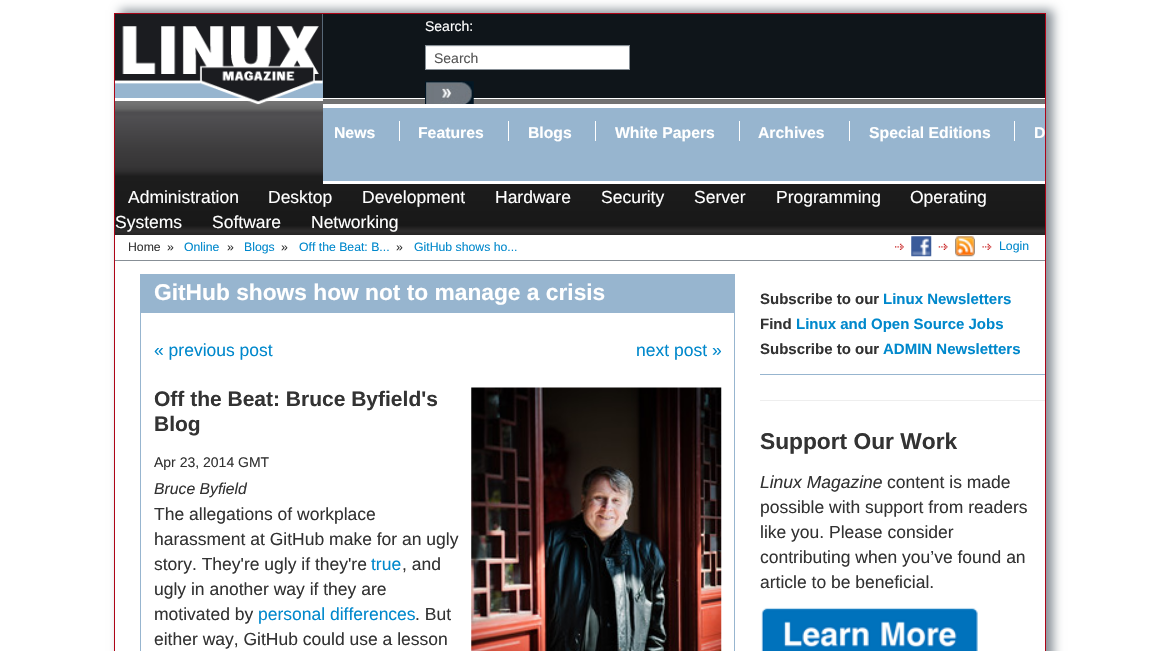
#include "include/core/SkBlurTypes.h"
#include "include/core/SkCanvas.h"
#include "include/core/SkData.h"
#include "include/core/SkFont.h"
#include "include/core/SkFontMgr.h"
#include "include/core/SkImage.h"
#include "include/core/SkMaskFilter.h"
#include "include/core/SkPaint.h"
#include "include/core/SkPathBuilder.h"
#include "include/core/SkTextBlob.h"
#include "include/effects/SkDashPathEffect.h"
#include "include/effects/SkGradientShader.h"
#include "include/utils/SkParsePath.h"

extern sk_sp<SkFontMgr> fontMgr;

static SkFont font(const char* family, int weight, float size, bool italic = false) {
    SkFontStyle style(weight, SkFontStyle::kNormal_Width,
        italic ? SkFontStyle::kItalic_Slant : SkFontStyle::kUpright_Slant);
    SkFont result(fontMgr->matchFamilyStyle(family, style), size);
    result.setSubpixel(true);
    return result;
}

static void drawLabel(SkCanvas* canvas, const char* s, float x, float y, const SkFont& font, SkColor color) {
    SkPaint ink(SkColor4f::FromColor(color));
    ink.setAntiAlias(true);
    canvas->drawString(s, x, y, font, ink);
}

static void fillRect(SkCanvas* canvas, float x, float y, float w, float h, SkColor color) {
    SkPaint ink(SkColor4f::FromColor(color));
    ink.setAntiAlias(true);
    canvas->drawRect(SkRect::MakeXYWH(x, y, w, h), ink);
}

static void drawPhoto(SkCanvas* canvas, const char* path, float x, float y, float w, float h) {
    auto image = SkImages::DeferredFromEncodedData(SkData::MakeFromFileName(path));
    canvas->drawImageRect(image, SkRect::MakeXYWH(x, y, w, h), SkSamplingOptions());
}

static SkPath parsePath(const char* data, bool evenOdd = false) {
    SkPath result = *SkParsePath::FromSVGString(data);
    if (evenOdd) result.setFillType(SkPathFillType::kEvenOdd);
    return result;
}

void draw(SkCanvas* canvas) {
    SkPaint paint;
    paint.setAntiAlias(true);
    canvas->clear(0xFFFFFFFF);
    canvas->save();
    canvas->clipPath(parsePath("M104 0H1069V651H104ZM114 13H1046V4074H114Z", true), true);
    paint.setColor(0xFF878F96);
    paint.setMaskFilter(SkMaskFilter::MakeBlur(kNormal_SkBlurStyle, 5));
    canvas->drawRect(SkRect::MakeXYWH(120, 10, 933, 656), paint);
    paint.setMaskFilter(nullptr);
    canvas->restore();
    paint.setStroke(true);
    paint.setStrokeWidth(1);
    paint.setColor(0xFFAE0417);
    canvas->drawRect(SkRect::MakeXYWH(114.5f, 13.5f, 931, 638), paint);
    fillRect(canvas, 323, 14, 722, 84, 0xFF0F151A);
    fillRect(canvas, 115, 14, 208, 84, 0xFF97B5CF);
    paint.setStroke(false);
    {
        const SkColor colors[] = {0xFF737373, 0xFF737373, 0xFF676767, 0xFF4D4C4F, 0xFF504F52, 0xFF3D3C3D, 0xFF363536, 0xFF2F2E2F, 0xFF1D1D1D, 0xFF181818, 0xFF2F2E2E, 0xFF252424};
        const float stops[] = {0, 0.03f, 0.07f, 0.1f, 0.13f, 0.37f, 0.5f, 0.53f, 0.57f, 0.93f, 0.97f, 1};
        const SkPoint ends[] = {{580, 99}, {580, 235}};
        paint.setShader(SkGradientShader::MakeLinear(ends, colors, stops, 12, SkTileMode::kClamp));
        paint.setAlpha(255);
    }
    canvas->drawRect(SkRect::MakeXYWH(115, 99, 930, 136), paint);
    fillRect(canvas, 115, 99, 208, 2, 0xFFFFFFFF);
    drawPhoto(canvas, "assets/img1.png", 115, 13, 208, 92);
    SkFont font1 = font("Liberation Sans", 400, 14);
    drawLabel(canvas, "Search:", 425, 31, font1, 0xFFFFFFFF);
    fillRect(canvas, 426, 47, 203, 22, 0xFFFFFFFF);
    fillRect(canvas, 426, 46, 203, 1, 0xFFECECEC);
    paint.setStroke(true);
    paint.setShader(nullptr);
    paint.setColor(0xFF878F96);
    canvas->drawRect(SkRect::MakeXYWH(425.5f, 45.5f, 204, 24), paint);
    drawLabel(canvas, "Search", 434, 63, font1, 0xFF555555);
    drawPhoto(canvas, "assets/img2.png", 425, 81, 49, 23);
    fillRect(canvas, 323, 108, 722, 73, 0xFF97B5CF);
    fillRect(canvas, 323, 104, 722, 4, 0xFFFFFFFF);
    fillRect(canvas, 323, 181, 722, 3, 0xFFFFFFFF);
    SkFont font2 = font("Liberation Sans", 700, 15.75f);
    drawLabel(canvas, "News", 334, 138, font2, 0xFFFFFFFF);
    fillRect(canvas, 399, 121, 1, 20, 0xFFFFFFFF);
    drawLabel(canvas, "Features", 418, 138, font2, 0xFFFFFFFF);
    fillRect(canvas, 508, 121, 1, 20, 0xFFFFFFFF);
    drawLabel(canvas, "Blogs", 528, 138, font2, 0xFFFFFFFF);
    fillRect(canvas, 595, 121, 1, 20, 0xFFFFFFFF);
    drawLabel(canvas, "White Papers", 615, 138, font2, 0xFFFFFFFF);
    fillRect(canvas, 739, 121, 1, 20, 0xFFFFFFFF);
    drawLabel(canvas, "Archives", 758, 138, font2, 0xFFFFFFFF);
    fillRect(canvas, 849, 121, 1, 20, 0xFFFFFFFF);
    drawLabel(canvas, "Special Editions", 869, 138, font2, 0xFFFFFFFF);
    fillRect(canvas, 1014, 121, 1, 20, 0xFFFFFFFF);
    drawLabel(canvas, "D", 1034, 138, font2, 0xFFFFFFFF);
    SkFont font3 = font("Liberation Sans", 400, 17.5f);
    drawLabel(canvas, "Administration", 128, 203, font3, 0xFFFFFFFF);
    drawLabel(canvas, "Desktop", 268, 203, font3, 0xFFFFFFFF);
    drawLabel(canvas, "Development", 362, 203, font3, 0xFFFFFFFF);
    drawLabel(canvas, "Hardware", 495, 203, font3, 0xFFFFFFFF);
    drawLabel(canvas, "Security", 601, 203, font3, 0xFFFFFFFF);
    drawLabel(canvas, "Server", 694, 203, font3, 0xFFFFFFFF);
    drawLabel(canvas, "Programming", 776, 203, font3, 0xFFFFFFFF);
    drawLabel(canvas, "Operating", 910, 203, font3, 0xFFFFFFFF);
    drawLabel(canvas, "Systems", 115, 228, font3, 0xFFFFFFFF);
    drawLabel(canvas, "Software", 212, 228, font3, 0xFFFFFFFF);
    drawLabel(canvas, "Networking", 311, 228, font3, 0xFFFFFFFF);
    fillRect(canvas, 115, 260, 930, 1, 0xFF878F96);
    SkFont font4 = font("Liberation Sans", 400, 12.25f);
    drawLabel(canvas, "Home", 128, 251, font4, 0xFF333333);
    drawLabel(canvas, "»", 167, 251, font4, 0xFF333333);
    drawLabel(canvas, "Online", 184, 251, font4, 0xFF0088CC);
    drawLabel(canvas, "»", 227, 251, font4, 0xFF333333);
    drawLabel(canvas, "Blogs", 244, 251, font4, 0xFF0088CC);
    drawLabel(canvas, "»", 281, 251, font4, 0xFF333333);
    drawLabel(canvas, "Off the Beat: B...", 299, 251, font4, 0xFF0088CC);
    drawLabel(canvas, "»", 396, 251, font4, 0xFF333333);
    drawLabel(canvas, "GitHub shows ho...", 414, 251, font4, 0xFF0088CC);
    drawPhoto(canvas, "assets/img3.png", 895, 243, 9, 7);
    drawPhoto(canvas, "assets/img4.png", 911, 236, 21, 21);
    drawPhoto(canvas, "assets/img5.png", 938, 243, 10, 7);
    drawPhoto(canvas, "assets/img6.png", 955, 236, 20, 21);
    drawPhoto(canvas, "assets/img7.png", 982, 243, 10, 7);
    drawLabel(canvas, "Login", 999, 250, font4, 0xFF0088CC);
    paint.setColor(0xFF97B5CF);
    canvas->drawRect(SkRect::MakeXYWH(140.5f, 274.5f, 594, 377), paint);
    fillRect(canvas, 141, 275, 593, 38, 0xFF97B5CF);
    SkFont font5 = font("Liberation Sans", 700, 22.75f);
    drawLabel(canvas, "GitHub shows how not to manage a crisis", 154, 300, font5, 0xFFFFFFFF);
    drawLabel(canvas, "« previous post", 154, 356, font3, 0xFF0088CC);
    drawLabel(canvas, "next post »", 636, 356, font3, 0xFF0088CC);
    SkFont font6 = font("Liberation Sans", 700, 21);
    drawLabel(canvas, "Off the Beat: Bruce Byfield's", 154, 406, font6, 0xFF333333);
    drawLabel(canvas, "Blog", 154, 431, font6, 0xFF333333);
    drawPhoto(canvas, "assets/img8.png", 471, 387, 251, 264);
    drawLabel(canvas, "Apr 23, 2014 GMT", 154, 467, font1, 0xFF333333);
    SkFont font7 = font("Liberation Sans", 400, 15.75f, true);
    drawLabel(canvas, "Bruce Byfield", 154, 494, font7, 0xFF333333);
    drawLabel(canvas, "The allegations of workplace", 154, 520, font3, 0xFF333333);
    drawLabel(canvas, "harassment at GitHub make for an ugly", 154, 545, font3, 0xFF333333);
    drawLabel(canvas, "story. They're ugly if they're", 154, 570, font3, 0xFF333333);
    drawLabel(canvas, "true", 371, 570, font3, 0xFF0088CC);
    drawLabel(canvas, ", and", 402, 570, font3, 0xFF333333);
    drawLabel(canvas, "ugly in another way if they are", 154, 595, font3, 0xFF333333);
    drawLabel(canvas, "motivated by", 154, 620, font3, 0xFF333333);
    drawLabel(canvas, "personal differences", 258, 620, font3, 0xFF0088CC);
    drawLabel(canvas, ". But", 415, 620, font3, 0xFF333333);
    drawLabel(canvas, "either way, GitHub could use a lesson", 154, 645, font3, 0xFF333333);
    fillRect(canvas, 760, 374, 285, 1, 0xFF97B5CF);
    SkFont font8 = font("Liberation Sans", 700, 15);
    drawLabel(canvas, "Subscribe to our", 760, 304, font8, 0xFF333333);
    drawLabel(canvas, "Linux Newsletters", 883, 304, font8, 0xFF0088CC);
    drawLabel(canvas, "Find", 760, 329, font8, 0xFF333333);
    drawLabel(canvas, "Linux and Open Source Jobs", 796, 329, font8, 0xFF0088CC);
    drawLabel(canvas, "Subscribe to our", 760, 354, font8, 0xFF333333);
    drawLabel(canvas, "ADMIN Newsletters", 883, 354, font8, 0xFF0088CC);
    fillRect(canvas, 760, 400, 285, 1, 0xFFEEEEEE);
    drawLabel(canvas, "Support Our Work", 760, 449, font5, 0xFF333333);
    SkFont font9 = font("Liberation Sans", 400, 17.5f, true);
    drawLabel(canvas, "Linux Magazine", 760, 488, font9, 0xFF333333);
    drawLabel(canvas, "content is made", 887, 488, font3, 0xFF333333);
    drawLabel(canvas, "possible with support from readers", 760, 513, font3, 0xFF333333);
    drawLabel(canvas, "like you. Please consider", 760, 538, font3, 0xFF333333);
    drawLabel(canvas, "contributing when you’ve found an", 760, 563, font3, 0xFF333333);
    drawLabel(canvas, "article to be beneficial.", 760, 588, font3, 0xFF333333);
    drawPhoto(canvas, "assets/img9.png", 761, 607, 217, 44);
}
